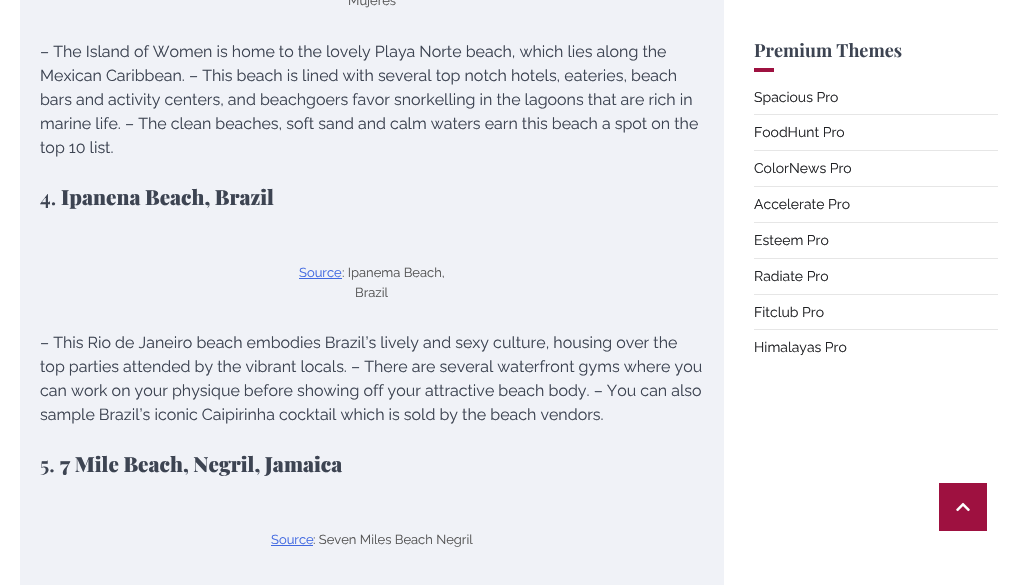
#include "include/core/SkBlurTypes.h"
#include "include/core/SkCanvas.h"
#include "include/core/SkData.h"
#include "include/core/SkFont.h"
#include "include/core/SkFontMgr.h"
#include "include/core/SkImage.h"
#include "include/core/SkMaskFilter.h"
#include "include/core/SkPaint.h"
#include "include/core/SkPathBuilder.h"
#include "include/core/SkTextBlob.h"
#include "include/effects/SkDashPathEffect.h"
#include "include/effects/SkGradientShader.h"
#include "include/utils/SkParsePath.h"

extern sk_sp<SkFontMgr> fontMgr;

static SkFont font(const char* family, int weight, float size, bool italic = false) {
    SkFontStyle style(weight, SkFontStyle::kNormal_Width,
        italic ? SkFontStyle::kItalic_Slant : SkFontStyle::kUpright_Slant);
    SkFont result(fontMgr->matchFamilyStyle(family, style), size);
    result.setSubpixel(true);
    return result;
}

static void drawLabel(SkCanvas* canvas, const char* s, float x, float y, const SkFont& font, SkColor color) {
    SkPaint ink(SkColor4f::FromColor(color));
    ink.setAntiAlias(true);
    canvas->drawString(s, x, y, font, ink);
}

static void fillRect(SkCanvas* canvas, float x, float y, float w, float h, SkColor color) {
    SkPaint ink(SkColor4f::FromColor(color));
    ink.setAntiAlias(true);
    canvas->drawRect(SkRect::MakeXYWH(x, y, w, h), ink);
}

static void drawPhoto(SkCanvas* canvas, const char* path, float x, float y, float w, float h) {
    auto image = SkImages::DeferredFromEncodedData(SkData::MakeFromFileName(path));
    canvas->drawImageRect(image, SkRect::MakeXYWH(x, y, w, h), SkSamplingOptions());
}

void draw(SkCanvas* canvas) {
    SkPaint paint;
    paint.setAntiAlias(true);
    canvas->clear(0xFFFFFFFF);
    fillRect(canvas, 20, 0, 704, 585, 0xFFF0F2F7);
    SkFont font1 = font("Raleway", 400, 13);
    drawLabel(canvas, "Mujeres", 348, 5, font1, 0xFF555555);
    SkFont font2 = font("Raleway", 400, 16);
    drawLabel(canvas, "– The Island of Women is home to the lovely Playa Norte beach, which lies along the", 40, 57, font2, 0xFF3D4452);
    drawLabel(canvas, "Mexican Caribbean. – This beach is lined with several top notch hotels, eateries, beach", 40, 81, font2, 0xFF3D4452);
    drawLabel(canvas, "bars and activity centers, and beachgoers favor snorkelling in the lagoons that are rich in", 40, 105, font2, 0xFF3D4452);
    drawLabel(canvas, "marine life. – The clean beaches, soft sand and calm waters earn this beach a spot on the", 40, 129, font2, 0xFF3D4452);
    drawLabel(canvas, "top 10 list.", 40, 153, font2, 0xFF3D4452);
    SkFont font3 = font("Playfair Display", 600, 20.75f);
    drawLabel(canvas, "4.", 40, 205, font3, 0xFF3D4452);
    SkFont font4 = font("Playfair Display", 900, 20.75f);
    drawLabel(canvas, "Ipanena Beach, Brazil", 61, 205, font4, 0xFF3D4452);
    drawLabel(canvas, "Source", 299, 277, font1, 0xFF4169E1);
    fillRect(canvas, 299, 278, 43, 1, 0xFF4169E1);
    drawLabel(canvas, ": Ipanema Beach,", 342, 277, font1, 0xFF555555);
    drawLabel(canvas, "Brazil", 355, 297, font1, 0xFF555555);
    drawLabel(canvas, "– This Rio de Janeiro beach embodies Brazil’s lively and sexy culture, housing over the", 40, 348, font2, 0xFF3D4452);
    drawLabel(canvas, "top parties attended by the vibrant locals. – There are several waterfront gyms where you", 40, 372, font2, 0xFF3D4452);
    drawLabel(canvas, "can work on your physique before showing off your attractive beach body. – You can also", 40, 396, font2, 0xFF3D4452);
    drawLabel(canvas, "sample Brazil’s iconic Caipirinha cocktail which is sold by the beach vendors.", 40, 420, font2, 0xFF3D4452);
    drawLabel(canvas, "5.", 40, 472, font3, 0xFF3D4452);
    drawLabel(canvas, "7 Mile Beach, Negril, Jamaica", 60, 472, font4, 0xFF3D4452);
    drawLabel(canvas, "Source", 271, 544, font1, 0xFF4169E1);
    fillRect(canvas, 271, 545, 42, 1, 0xFF4169E1);
    drawLabel(canvas, ": Seven Miles Beach Negril", 313, 544, font1, 0xFF555555);
    SkFont font5 = font("Playfair Display", 700, 18);
    drawLabel(canvas, "Premium Themes", 754, 57, font5, 0xFF3D4452);
    fillRect(canvas, 754, 68, 20, 4, 0xFF9E1140);
    fillRect(canvas, 754, 114, 244, 1, 0xFFE6E6E6);
    SkFont font6 = font("Raleway", 400, 14);
    drawLabel(canvas, "Spacious Pro", 754, 102, font6, 0xFF202124);
    fillRect(canvas, 754, 150, 244, 1, 0xFFE6E6E6);
    drawLabel(canvas, "FoodHunt Pro", 754, 137, font6, 0xFF202124);
    fillRect(canvas, 754, 186, 244, 1, 0xFFE6E6E6);
    drawLabel(canvas, "ColorNews Pro", 754, 173, font6, 0xFF202124);
    fillRect(canvas, 754, 222, 244, 1, 0xFFE6E6E6);
    drawLabel(canvas, "Accelerate Pro", 754, 209, font6, 0xFF202124);
    fillRect(canvas, 754, 258, 244, 1, 0xFFE6E6E6);
    drawLabel(canvas, "Esteem Pro", 754, 245, font6, 0xFF202124);
    fillRect(canvas, 754, 294, 244, 1, 0xFFE6E6E6);
    drawLabel(canvas, "Radiate Pro", 754, 281, font6, 0xFF202124);
    fillRect(canvas, 754, 329, 244, 1, 0xFFE6E6E6);
    drawLabel(canvas, "Fitclub Pro", 754, 317, font6, 0xFF202124);
    drawLabel(canvas, "Himalayas Pro", 754, 352, font6, 0xFF202124);
    fillRect(canvas, 939, 483, 48, 48, 0xFF9E1140);
    drawPhoto(canvas, "assets/img1.png", 956, 502, 14, 10);
}
